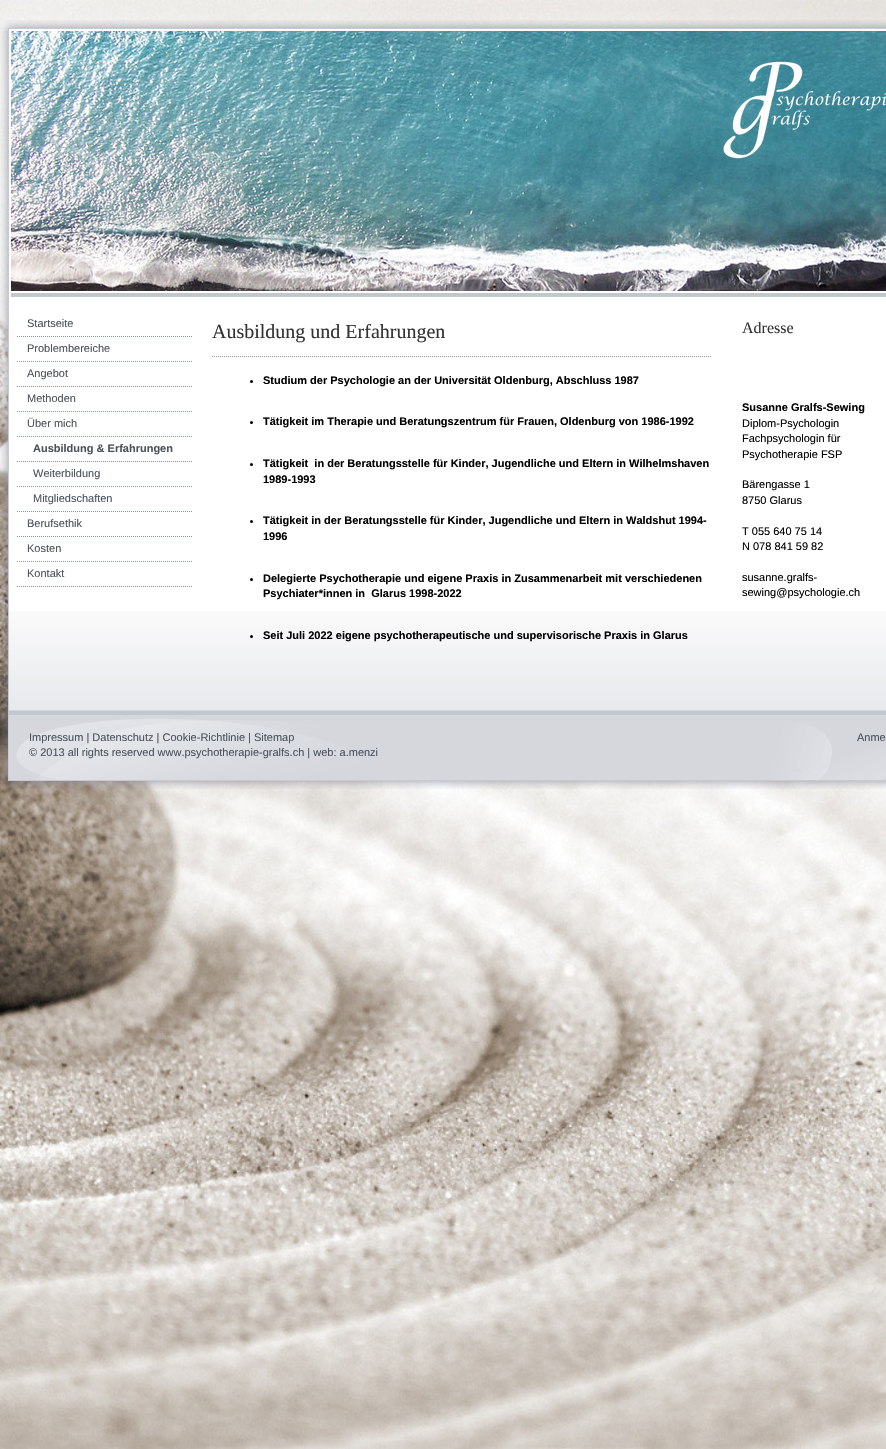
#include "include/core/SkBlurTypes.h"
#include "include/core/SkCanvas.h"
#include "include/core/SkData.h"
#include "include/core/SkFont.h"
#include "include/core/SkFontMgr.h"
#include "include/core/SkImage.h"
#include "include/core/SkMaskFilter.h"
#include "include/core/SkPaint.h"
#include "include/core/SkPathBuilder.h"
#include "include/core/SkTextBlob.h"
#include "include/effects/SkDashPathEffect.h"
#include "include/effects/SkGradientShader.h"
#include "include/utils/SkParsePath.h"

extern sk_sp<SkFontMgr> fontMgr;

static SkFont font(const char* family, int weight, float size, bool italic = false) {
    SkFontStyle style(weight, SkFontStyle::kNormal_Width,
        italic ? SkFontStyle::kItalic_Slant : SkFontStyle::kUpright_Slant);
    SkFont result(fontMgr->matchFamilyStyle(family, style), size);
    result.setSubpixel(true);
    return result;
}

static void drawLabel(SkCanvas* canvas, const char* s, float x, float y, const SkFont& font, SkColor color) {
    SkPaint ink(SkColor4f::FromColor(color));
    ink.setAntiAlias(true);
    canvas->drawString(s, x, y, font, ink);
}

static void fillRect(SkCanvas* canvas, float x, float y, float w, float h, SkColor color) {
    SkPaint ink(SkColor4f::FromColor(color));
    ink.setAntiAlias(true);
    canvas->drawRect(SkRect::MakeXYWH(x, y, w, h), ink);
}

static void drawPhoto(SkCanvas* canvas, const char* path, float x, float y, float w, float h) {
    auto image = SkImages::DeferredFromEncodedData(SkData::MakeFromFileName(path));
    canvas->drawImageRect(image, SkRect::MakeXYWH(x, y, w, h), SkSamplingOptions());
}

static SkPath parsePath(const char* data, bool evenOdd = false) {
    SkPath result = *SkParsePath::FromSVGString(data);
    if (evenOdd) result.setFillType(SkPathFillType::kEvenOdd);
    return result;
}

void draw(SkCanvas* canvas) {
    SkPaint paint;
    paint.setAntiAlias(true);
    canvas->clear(0xFFFFFFFF);
    drawPhoto(canvas, "assets/img1.png", 0, 0, 886, 1449);
    drawPhoto(canvas, "assets/img2.png", 0, 20, 886, 11);
    drawPhoto(canvas, "assets/img3.png", 0, 31, 886, 749);
    fillRect(canvas, 11, 293, 875, 4, 0xFFC2C6CD);
    drawPhoto(canvas, "assets/img4.png", 11, 31, 875, 260);
    drawPhoto(canvas, "assets/img5.png", 723, 61, 163, 98);
    drawPhoto(canvas, "assets/img6.png", 9, 611, 877, 99);
    drawPhoto(canvas, "assets/img7.png", 17, 336, 175, 1);
    SkFont font1 = font("Liberation Sans", 400, 11);
    drawLabel(canvas, "Startseite", 27, 327, font1, 0xFF4B525C);
    drawPhoto(canvas, "assets/img7.png", 17, 361, 175, 1);
    drawLabel(canvas, "Problembereiche", 27, 352, font1, 0xFF4B525C);
    drawPhoto(canvas, "assets/img7.png", 17, 386, 175, 1);
    drawLabel(canvas, "Angebot", 27, 377, font1, 0xFF4B525C);
    drawPhoto(canvas, "assets/img7.png", 17, 411, 175, 1);
    drawLabel(canvas, "Methoden", 27, 402, font1, 0xFF4B525C);
    drawPhoto(canvas, "assets/img7.png", 17, 436, 175, 1);
    drawLabel(canvas, "Über mich", 27, 427, font1, 0xFF4B525C);
    drawPhoto(canvas, "assets/img7.png", 17, 461, 175, 1);
    SkFont font2 = font("Liberation Sans", 700, 11);
    drawLabel(canvas, "Ausbildung & Erfahrungen", 33, 452, font2, 0xFF4B525C);
    drawPhoto(canvas, "assets/img7.png", 17, 486, 175, 1);
    drawLabel(canvas, "Weiterbildung", 33, 477, font1, 0xFF4B525C);
    drawPhoto(canvas, "assets/img7.png", 17, 511, 175, 1);
    drawLabel(canvas, "Mitgliedschaften", 33, 502, font1, 0xFF4B525C);
    drawPhoto(canvas, "assets/img7.png", 17, 536, 175, 1);
    drawLabel(canvas, "Berufsethik", 27, 527, font1, 0xFF4B525C);
    drawPhoto(canvas, "assets/img7.png", 17, 561, 175, 1);
    drawLabel(canvas, "Kosten", 27, 552, font1, 0xFF4B525C);
    drawPhoto(canvas, "assets/img7.png", 17, 586, 175, 1);
    drawLabel(canvas, "Kontakt", 27, 577, font1, 0xFF4B525C);
    SkFont font3 = font("Liberation Serif", 400, 20);
    drawLabel(canvas, "Ausbildung und Erfahrungen", 212, 338, font3, 0xFF333333);
    paint.setStroke(true);
    paint.setStrokeWidth(1);
    paint.setColor(0xFF999999);
    paint.setPathEffect(SkDashPathEffect::Make({{1, 1}}, 0));
    canvas->drawPath(parsePath("M212 356.5H712"), paint);
    paint.setPathEffect(nullptr);
    paint.setStroke(false);
    paint.setColor(0xFF000000);
    canvas->drawCircle(251.5f, 381.5f, 1.5f, paint);
    drawLabel(canvas, "Studium der Psychologie an der Universität Oldenburg, Abschluss 1987", 263, 384, font2, 0xFF000000);
    canvas->drawCircle(251.5f, 422.5f, 1.5f, paint);
    drawLabel(canvas, "Tätigkeit im Therapie und Beratungszentrum für Frauen, Oldenburg von 1986-1992", 263, 425, font2, 0xFF000000);
    canvas->drawCircle(251.5f, 464.5f, 1.5f, paint);
    drawLabel(canvas, "Tätigkeit  in der Beratungsstelle für Kinder, Jugendliche und Eltern in Wilhelmshaven", 263, 467, font2, 0xFF000000);
    drawLabel(canvas, "1989-1993", 263, 483, font2, 0xFF000000);
    canvas->drawCircle(251.5f, 521.5f, 1.5f, paint);
    drawLabel(canvas, "Tätigkeit in der Beratungsstelle für Kinder, Jugendliche und Eltern in Waldshut 1994-", 263, 524, font2, 0xFF000000);
    drawLabel(canvas, "1996", 263, 540, font2, 0xFF000000);
    canvas->drawCircle(251.5f, 579.5f, 1.5f, paint);
    drawLabel(canvas, "Delegierte Psychotherapie und eigene Praxis in Zusammenarbeit mit verschiedenen", 263, 582, font2, 0xFF000000);
    drawLabel(canvas, "Psychiater*innen in  Glarus 1998-2022", 263, 597, font2, 0xFF000000);
    canvas->drawCircle(251.5f, 636.5f, 1.5f, paint);
    drawLabel(canvas, "Seit Juli 2022 eigene psychotherapeutische und supervisorische Praxis in Glarus", 263, 639, font2, 0xFF000000);
    SkFont font4 = font("Liberation Serif", 400, 16);
    drawLabel(canvas, "Adresse", 742, 333, font4, 0xFF333333);
    drawLabel(canvas, "Susanne Gralfs-Sewing", 742, 411, font2, 0xFF000000);
    drawLabel(canvas, "Diplom-Psychologin", 742, 427, font1, 0xFF000000);
    drawLabel(canvas, "Fachpsychologin für", 742, 442, font1, 0xFF000000);
    drawLabel(canvas, "Psychotherapie FSP", 742, 458, font1, 0xFF000000);
    drawLabel(canvas, "Bärengasse 1", 742, 488, font1, 0xFF000000);
    drawLabel(canvas, "8750 Glarus", 742, 504, font1, 0xFF000000);
    drawLabel(canvas, "T 055 640 75 14", 742, 535, font1, 0xFF000000);
    drawLabel(canvas, "N 078 841 59 82", 742, 550, font1, 0xFF000000);
    drawLabel(canvas, "susanne.gralfs-", 742, 581, font1, 0xFF000000);
    drawLabel(canvas, "sewing@psychologie.ch", 742, 596, font1, 0xFF000000);
    fillRect(canvas, 9, 710, 877, 1, 0xFFD5D7DE);
    drawPhoto(canvas, "assets/img8.png", 9, 711, 877, 69);
    drawLabel(canvas, "Impressum | Datenschutz | Cookie-Richtlinie | Sitemap", 29, 741, font1, 0xFF4B525C);
    drawLabel(canvas, "© 2013 all rights reserved www.psychotherapie-gralfs.ch | web: a.menzi", 29, 756, font1, 0xFF4B525C);
    drawLabel(canvas, "Anme", 857, 741, font1, 0xFF4B525C);
    drawPhoto(canvas, "assets/img9.png", 3, 780, 883, 9);
}
